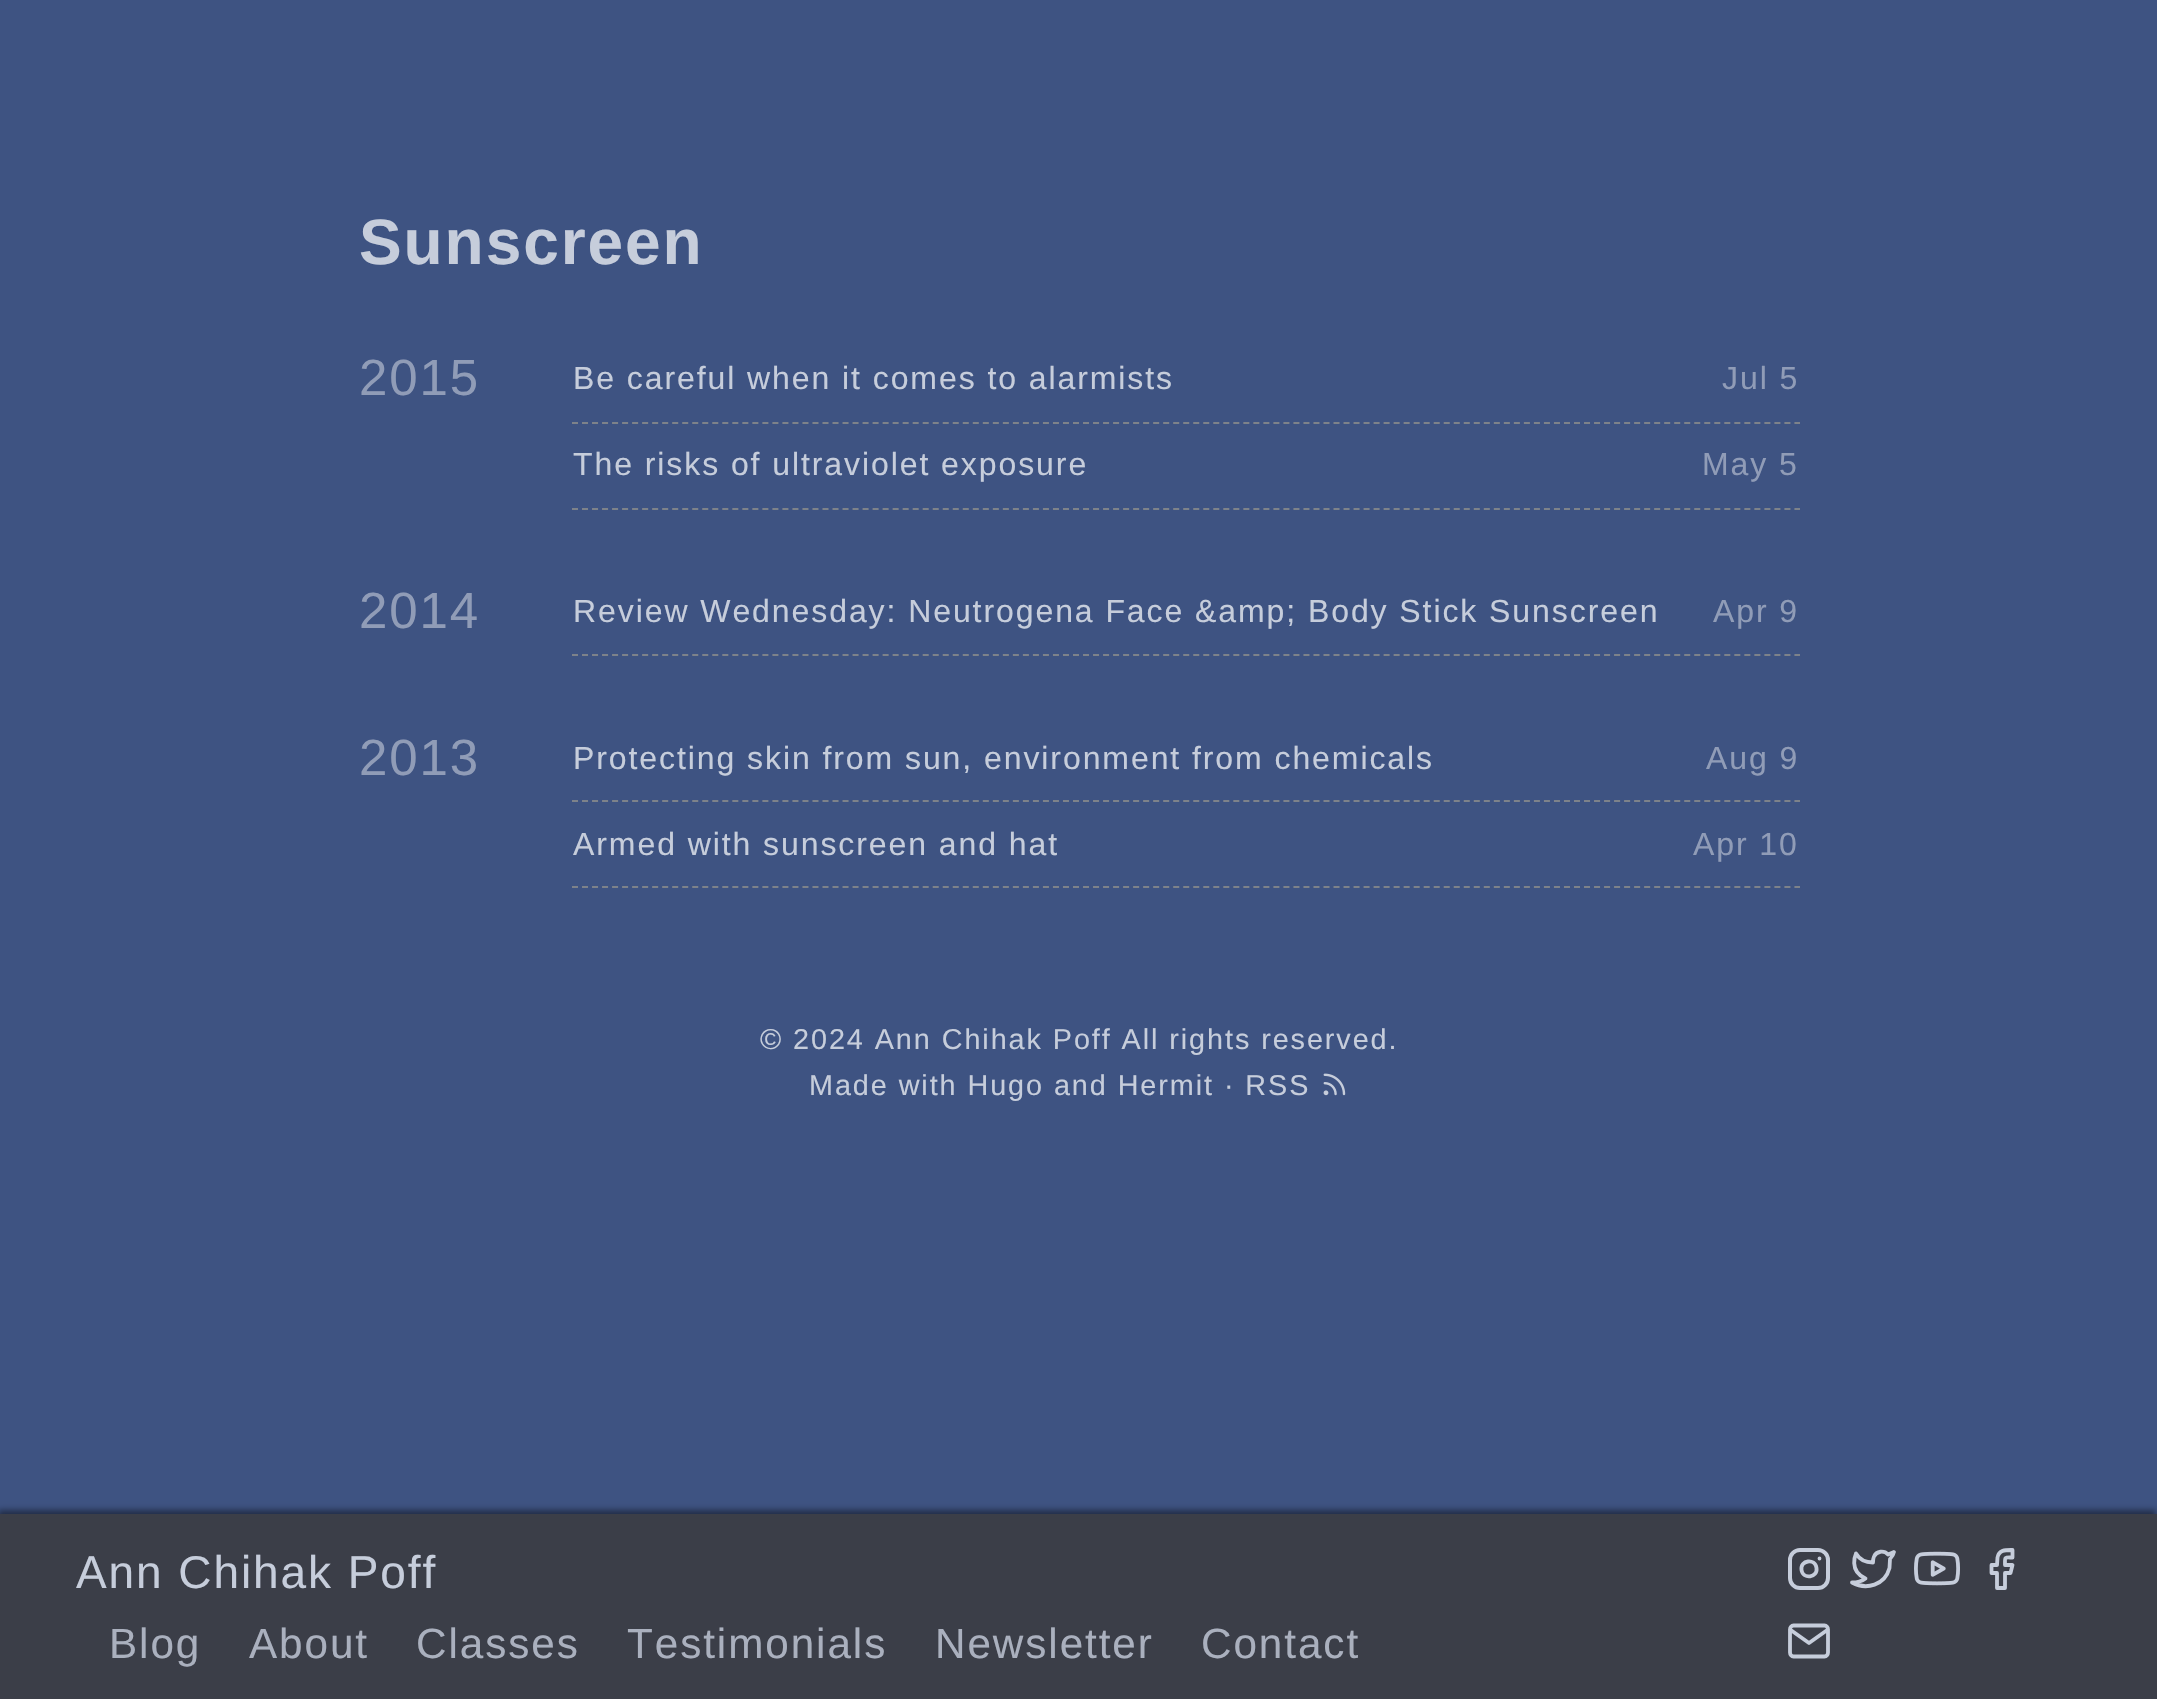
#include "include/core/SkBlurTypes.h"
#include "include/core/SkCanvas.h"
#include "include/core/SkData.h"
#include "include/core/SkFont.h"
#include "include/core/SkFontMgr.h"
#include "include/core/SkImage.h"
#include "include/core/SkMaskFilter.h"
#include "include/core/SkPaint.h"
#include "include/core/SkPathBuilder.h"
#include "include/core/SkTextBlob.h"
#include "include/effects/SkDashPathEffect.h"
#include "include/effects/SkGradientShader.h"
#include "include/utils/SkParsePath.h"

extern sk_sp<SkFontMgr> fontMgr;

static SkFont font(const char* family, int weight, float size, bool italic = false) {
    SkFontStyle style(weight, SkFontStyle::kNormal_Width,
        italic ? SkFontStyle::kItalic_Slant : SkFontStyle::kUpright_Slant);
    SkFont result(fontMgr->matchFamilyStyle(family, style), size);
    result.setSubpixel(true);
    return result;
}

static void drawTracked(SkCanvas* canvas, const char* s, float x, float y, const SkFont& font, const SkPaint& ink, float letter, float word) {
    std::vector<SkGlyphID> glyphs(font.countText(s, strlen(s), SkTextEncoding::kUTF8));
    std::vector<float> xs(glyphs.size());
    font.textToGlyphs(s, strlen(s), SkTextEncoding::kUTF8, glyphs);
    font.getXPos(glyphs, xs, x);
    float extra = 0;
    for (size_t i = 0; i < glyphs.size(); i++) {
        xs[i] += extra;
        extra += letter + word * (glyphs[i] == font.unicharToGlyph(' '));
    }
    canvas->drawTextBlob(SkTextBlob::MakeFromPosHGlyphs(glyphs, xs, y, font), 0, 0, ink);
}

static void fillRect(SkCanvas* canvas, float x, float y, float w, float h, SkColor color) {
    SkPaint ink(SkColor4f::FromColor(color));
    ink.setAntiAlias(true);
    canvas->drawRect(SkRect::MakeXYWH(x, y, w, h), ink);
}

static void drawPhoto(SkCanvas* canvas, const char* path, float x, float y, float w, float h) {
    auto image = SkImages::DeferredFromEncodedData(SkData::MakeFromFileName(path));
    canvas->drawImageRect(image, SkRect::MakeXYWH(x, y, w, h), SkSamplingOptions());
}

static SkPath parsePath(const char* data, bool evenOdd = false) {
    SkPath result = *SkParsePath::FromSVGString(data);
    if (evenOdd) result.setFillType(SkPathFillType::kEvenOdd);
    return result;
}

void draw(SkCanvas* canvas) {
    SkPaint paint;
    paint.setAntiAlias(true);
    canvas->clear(0xFF3E5382);
    SkFont font1 = font("Liberation Sans", 700, 64);
    paint.setColor(0xFFC6CDDB);
    drawTracked(canvas, "Sunscreen", 359, 264, font1, paint, 1.92f, 0);
    SkFont font2 = font("Liberation Sans", 400, 51);
    paint.setColor(0xFF909CB7);
    drawTracked(canvas, "2015", 359, 395, font2, paint, 1.92f, 0);
    paint.setStroke(true);
    paint.setStrokeWidth(2);
    paint.setColor(0xFF7D828A);
    paint.setPathEffect(SkDashPathEffect::Make({{6, 4.02f}}, 0));
    canvas->drawPath(parsePath("M572 423H1800"), paint);
    paint.setPathEffect(nullptr);
    SkFont font3 = font("Liberation Sans", 400, 32);
    paint.setStroke(false);
    paint.setColor(0xFFC6CDDB);
    drawTracked(canvas, "Be careful when it comes to alarmists", 573, 389, font3, paint, 1.92f, 0);
    paint.setColor(0xFF909CB7);
    drawTracked(canvas, "Jul 5", 1722, 389, font3, paint, 1.92f, 0);
    paint.setStroke(true);
    paint.setColor(0xFF7D828A);
    paint.setPathEffect(SkDashPathEffect::Make({{6, 4.02f}}, 0));
    canvas->drawPath(parsePath("M572 509H1800"), paint);
    paint.setPathEffect(nullptr);
    paint.setStroke(false);
    paint.setColor(0xFFC6CDDB);
    drawTracked(canvas, "The risks of ultraviolet exposure", 573, 475, font3, paint, 1.92f, 0);
    paint.setColor(0xFF909CB7);
    drawTracked(canvas, "May 5", 1702, 475, font3, paint, 1.92f, 0);
    drawTracked(canvas, "2014", 359, 628, font2, paint, 1.92f, 0);
    paint.setStroke(true);
    paint.setColor(0xFF7D828A);
    paint.setPathEffect(SkDashPathEffect::Make({{6, 4.02f}}, 0));
    canvas->drawPath(parsePath("M572 655H1800"), paint);
    paint.setPathEffect(nullptr);
    paint.setStroke(false);
    paint.setColor(0xFFC6CDDB);
    drawTracked(canvas, "Review Wednesday: Neutrogena Face &amp; Body Stick Sunscreen", 573, 622, font3, paint, 1.92f, 0);
    paint.setColor(0xFF909CB7);
    drawTracked(canvas, "Apr 9", 1713, 622, font3, paint, 1.92f, 0);
    drawTracked(canvas, "2013", 359, 775, font2, paint, 1.92f, 0);
    paint.setStroke(true);
    paint.setColor(0xFF7D828A);
    paint.setPathEffect(SkDashPathEffect::Make({{6, 4.02f}}, 0));
    canvas->drawPath(parsePath("M572 801H1800"), paint);
    paint.setPathEffect(nullptr);
    paint.setStroke(false);
    paint.setColor(0xFFC6CDDB);
    drawTracked(canvas, "Protecting skin from sun, environment from chemicals", 573, 769, font3, paint, 1.92f, 0);
    paint.setColor(0xFF909CB7);
    drawTracked(canvas, "Aug 9", 1706, 769, font3, paint, 1.92f, 0);
    paint.setStroke(true);
    paint.setColor(0xFF7D828A);
    paint.setPathEffect(SkDashPathEffect::Make({{6, 4.02f}}, 0));
    canvas->drawPath(parsePath("M572 887H1800"), paint);
    paint.setPathEffect(nullptr);
    paint.setStroke(false);
    paint.setColor(0xFFC6CDDB);
    drawTracked(canvas, "Armed with sunscreen and hat", 573, 855, font3, paint, 1.92f, 0);
    paint.setColor(0xFF909CB7);
    drawTracked(canvas, "Apr 10", 1693, 855, font3, paint, 1.92f, 0);
    SkFont font4 = font("Liberation Sans", 400, 28.8f);
    paint.setColor(0xFFC6CDDB);
    drawTracked(canvas, "© 2024 Ann Chihak Poff All rights reserved.", 760, 1049, font4, paint, 1.92f, 0);
    drawTracked(canvas, "Made with Hugo and Hermit · RSS", 809, 1095, font4, paint, 1.92f, 0);
    drawPhoto(canvas, "assets/img1.png", 1323, 1073, 23, 23);
    paint.setColor(0x73000000);
    paint.setMaskFilter(SkMaskFilter::MakeBlur(kNormal_SkBlurStyle, 3));
    canvas->drawRect(SkRect::MakeXYWH(-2, 1510, 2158, 186), paint);
    paint.setMaskFilter(nullptr);
    fillRect(canvas, 0, 1514, 2157, 185, 0xFF3B3E48);
    SkFont font5 = font("Liberation Sans", 400, 46);
    paint.setColor(0xFFC6CDDB);
    drawTracked(canvas, "Ann Chihak Poff", 76, 1588, font5, paint, 1.92f, 0);
    SkFont font6 = font("Liberation Sans", 400, 42.25f);
    paint.setColor(0xFFAAB0BE);
    drawTracked(canvas, "Blog", 109, 1658, font6, paint, 1.92f, 0);
    drawTracked(canvas, "About", 249, 1658, font6, paint, 1.92f, 0);
    drawTracked(canvas, "Classes", 416, 1658, font6, paint, 1.92f, 0);
    drawTracked(canvas, "Testimonials", 627, 1658, font6, paint, 1.92f, 0);
    drawTracked(canvas, "Newsletter", 935, 1658, font6, paint, 1.92f, 0);
    drawTracked(canvas, "Contact", 1201, 1658, font6, paint, 1.92f, 0);
    paint.setStroke(true);
    paint.setStrokeWidth(4);
    paint.setColor(0xFFC6CDDB);
    canvas->drawRoundRect(SkRect::MakeXYWH(1790, 1550, 38, 38), 10, 10, paint);
    paint.setStrokeWidth(3.8f);
    paint.setStrokeCap(SkPaint::kRound_Cap);
    paint.setStrokeJoin(SkPaint::kRound_Join);
    canvas->drawPath(parsePath("M1816.5 1568C1818 1577.5 1803 1580 1801.5 1570C1800 1560 1815 1558 1816.5 1568ZM1819.5 1558.5H1819.5"), paint);
    canvas->drawPath(parsePath("M1894 1552L1888 1554.5C1884 1550 1876.5 1551 1874 1556.5C1873 1558.5 1873 1560.5 1873 1562.5C1866 1562.5 1859.5 1559.5 1856 1553.5C1856 1553.5 1848 1571 1865.5 1578.5C1861.5 1581.5 1856.5 1582.5 1852 1582.5C1866.5 1590.5 1885 1585 1889.5 1568L1890 1559C1892 1557 1893.5 1554.5 1894 1552Z"), paint);
    drawPhoto(canvas, "assets/img2.png", 1914, 1551, 46, 35);
    canvas->drawPath(parsePath("M2012.5 1550C2006 1550 1999 1549.5 1997.5 1557.5L1997 1565H1991.5V1573H1997V1588H2005V1573H2010.5L2012.5 1565H2005C2005 1556.5 2004 1557.5 2012.5 1557.5Z"), paint);
    canvas->drawPath(parsePath("M1793.5 1625.5H1824.5C1826.5 1625.5 1828 1627.5 1828 1629.5V1652.5C1828 1654.5 1826.5 1656.5 1824.5 1656.5H1793.5C1791.5 1656.5 1790 1654.5 1790 1652.5V1629.5C1790 1627.5 1791.5 1625.5 1793.5 1625.5ZM1828 1629.5L1809 1643L1790 1629.5"), paint);
}
